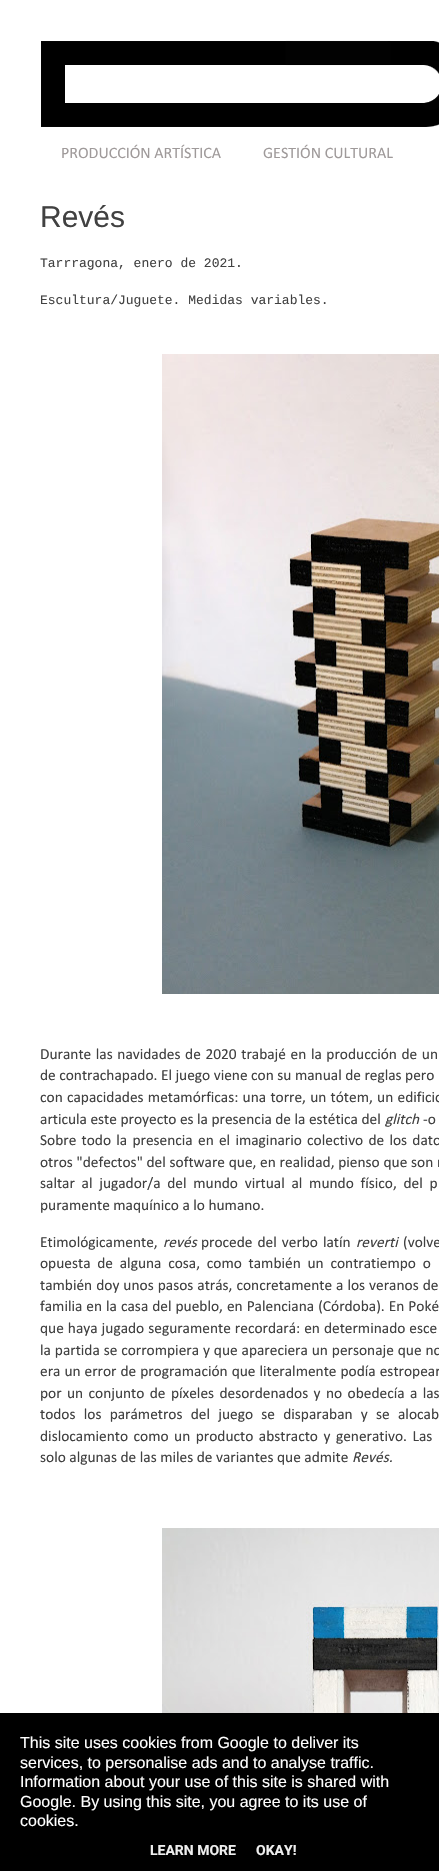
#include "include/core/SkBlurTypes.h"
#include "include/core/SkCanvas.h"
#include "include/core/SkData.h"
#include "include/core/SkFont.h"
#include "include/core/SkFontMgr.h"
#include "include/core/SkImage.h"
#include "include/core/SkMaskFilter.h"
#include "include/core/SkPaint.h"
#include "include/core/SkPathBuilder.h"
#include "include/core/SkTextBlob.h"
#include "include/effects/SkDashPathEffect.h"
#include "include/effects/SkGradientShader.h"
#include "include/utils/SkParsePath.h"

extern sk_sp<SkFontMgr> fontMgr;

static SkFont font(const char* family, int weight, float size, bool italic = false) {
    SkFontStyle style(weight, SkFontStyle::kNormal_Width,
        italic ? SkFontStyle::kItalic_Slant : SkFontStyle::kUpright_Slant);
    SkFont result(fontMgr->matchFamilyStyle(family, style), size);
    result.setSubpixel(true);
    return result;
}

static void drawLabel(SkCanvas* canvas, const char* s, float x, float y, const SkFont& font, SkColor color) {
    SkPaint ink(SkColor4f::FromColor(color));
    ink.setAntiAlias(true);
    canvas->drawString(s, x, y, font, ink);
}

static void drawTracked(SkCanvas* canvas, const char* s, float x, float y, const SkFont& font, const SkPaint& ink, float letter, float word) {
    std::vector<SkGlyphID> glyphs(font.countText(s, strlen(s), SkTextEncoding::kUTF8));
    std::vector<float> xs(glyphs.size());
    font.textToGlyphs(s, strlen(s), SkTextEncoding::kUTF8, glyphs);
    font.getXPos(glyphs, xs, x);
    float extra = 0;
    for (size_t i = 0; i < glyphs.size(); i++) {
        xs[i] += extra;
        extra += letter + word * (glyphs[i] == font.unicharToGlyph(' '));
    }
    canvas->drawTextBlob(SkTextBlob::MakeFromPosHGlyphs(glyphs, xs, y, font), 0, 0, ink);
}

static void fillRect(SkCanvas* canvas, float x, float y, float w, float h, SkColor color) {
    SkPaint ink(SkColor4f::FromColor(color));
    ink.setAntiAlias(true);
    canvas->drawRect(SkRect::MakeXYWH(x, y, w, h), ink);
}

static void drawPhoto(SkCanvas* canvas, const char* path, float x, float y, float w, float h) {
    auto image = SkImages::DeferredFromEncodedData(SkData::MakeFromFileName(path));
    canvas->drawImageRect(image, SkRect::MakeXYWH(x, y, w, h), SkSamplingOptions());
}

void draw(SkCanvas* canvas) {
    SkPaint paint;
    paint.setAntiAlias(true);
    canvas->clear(0xFFFFFFFF);
    drawPhoto(canvas, "assets/img1.png", 41, 40, 398, 87);
    SkFont font1 = font("Calibri", 400, 16);
    drawLabel(canvas, "PRODUCCIÓN ARTÍSTICA", 61, 158, font1, 0xFF9F9A9A);
    drawLabel(canvas, "GESTIÓN CULTURAL", 263, 158, font1, 0xFF9F9A9A);
    SkFont font2 = font("Liberation Sans", 400, 30);
    drawLabel(canvas, "Revés", 40, 227, font2, 0xFF414141);
    SkFont font3 = font("Liberation Mono", 400, 13);
    drawLabel(canvas, "Tarrragona, enero de 2021.", 40, 267, font3, 0xFF414141);
    drawLabel(canvas, "Escultura/Juguete. Medidas variables.", 40, 304, font3, 0xFF414141);
    drawPhoto(canvas, "assets/img2.png", 162, 354, 277, 640);
    SkFont font4 = font("Calibri", 400, 15.4f);
    paint.setColor(0xFF414141);
    drawTracked(canvas, "Durante las navidades de 2020 trabajé en la producción de un", 40, 1059, font4, paint, 0, 1.1f);
    drawLabel(canvas, "de contrachapado. El juego viene con su manual de reglas pero", 40, 1080, font4, 0xFF414141);
    drawTracked(canvas, "con capacidades metamórficas: una torre, un tótem, un edificio", 40, 1102, font4, paint, 0, 0.75f);
    drawLabel(canvas, "articula este proyecto es la presencia de la estética del", 40, 1124, font4, 0xFF414141);
    SkFont font5 = font("Calibri", 400, 15.4f, true);
    drawLabel(canvas, "glitch", 385, 1124, font5, 0xFF414141);
    drawLabel(canvas, "-o", 423, 1124, font4, 0xFF414141);
    drawTracked(canvas, "Sobre todo la presencia en el imaginario colectivo de los dato", 40, 1145, font4, paint, 0, 1.75f);
    drawTracked(canvas, "otros \"defectos\" del software que, en realidad, pienso que son r", 40, 1167, font4, paint, 0, 0.25f);
    drawTracked(canvas, "saltar al jugador/a del mundo virtual al mundo físico, del p", 40, 1188, font4, paint, 0, 3.25f);
    drawLabel(canvas, "puramente maquínico a lo humano.", 40, 1210, font4, 0xFF414141);
    drawLabel(canvas, "Etimológicamente,", 40, 1247, font4, 0xFF414141);
    drawLabel(canvas, "revés", 163, 1247, font5, 0xFF414141);
    drawTracked(canvas, "procede del verbo latín", 201, 1247, font4, paint, 0, 1.5f);
    drawLabel(canvas, "reverti", 356, 1247, font5, 0xFF414141);
    drawTracked(canvas, "(volve", 403, 1247, font4, paint, 0, 2);
    drawTracked(canvas, "opuesta de alguna cosa, como también un contratiempo o", 40, 1268, font4, paint, 0, 3.25f);
    drawTracked(canvas, "también doy unos pasos atrás, concretamente a los veranos de", 40, 1290, font4, paint, 0, 0.5f);
    drawTracked(canvas, "familia en la casa del pueblo, en Palenciana (Córdoba). En Poké", 40, 1311, font4, paint, 0, 0.5f);
    drawTracked(canvas, "que haya jugado seguramente recordará: en determinado esce", 40, 1333, font4, paint, 0, 0.5f);
    drawTracked(canvas, "la partida se corrompiera y que apareciera un personaje que no", 40, 1355, font4, paint, 0, 0.4f);
    drawTracked(canvas, "era un error de programación que literalmente podía estropear", 40, 1376, font4, paint, 0, 0.5f);
    drawTracked(canvas, "por un conjunto de píxeles desordenados y no obedecía a las", 40, 1398, font4, paint, 0, 1.9f);
    drawTracked(canvas, "todos los parámetros del juego se disparaban y se alocab", 40, 1419, font4, paint, 0, 4.75f);
    drawTracked(canvas, "dislocamiento como un producto abstracto y generativo. Las", 40, 1441, font4, paint, 0, 2);
    drawLabel(canvas, "solo algunas de las miles de variantes que admite", 40, 1462, font4, 0xFF414141);
    drawLabel(canvas, "Revés.", 352, 1462, font5, 0xFF414141);
    drawPhoto(canvas, "assets/img3.png", 162, 1528, 277, 185);
    fillRect(canvas, 0, 1713, 439, 158, 0xFF000000);
    SkFont font6 = font("Liberation Sans", 400, 16);
    drawLabel(canvas, "This site uses cookies from Google to deliver its", 20, 1748, font6, 0xFFFFFFFF);
    drawLabel(canvas, "services, to personalise ads and to analyse traffic.", 20, 1768, font6, 0xFFFFFFFF);
    drawLabel(canvas, "Information about your use of this site is shared with", 20, 1787, font6, 0xFFFFFFFF);
    drawLabel(canvas, "Google. By using this site, you agree to its use of", 20, 1807, font6, 0xFFFFFFFF);
    drawLabel(canvas, "cookies.", 20, 1826, font6, 0xFFFFFFFF);
    SkFont font7 = font("Roboto", 700, 14);
    drawLabel(canvas, "LEARN MORE", 150, 1855, font7, 0xFFEEEEEE);
    drawLabel(canvas, "OKAY!", 256, 1855, font7, 0xFFEEEEEE);
}
